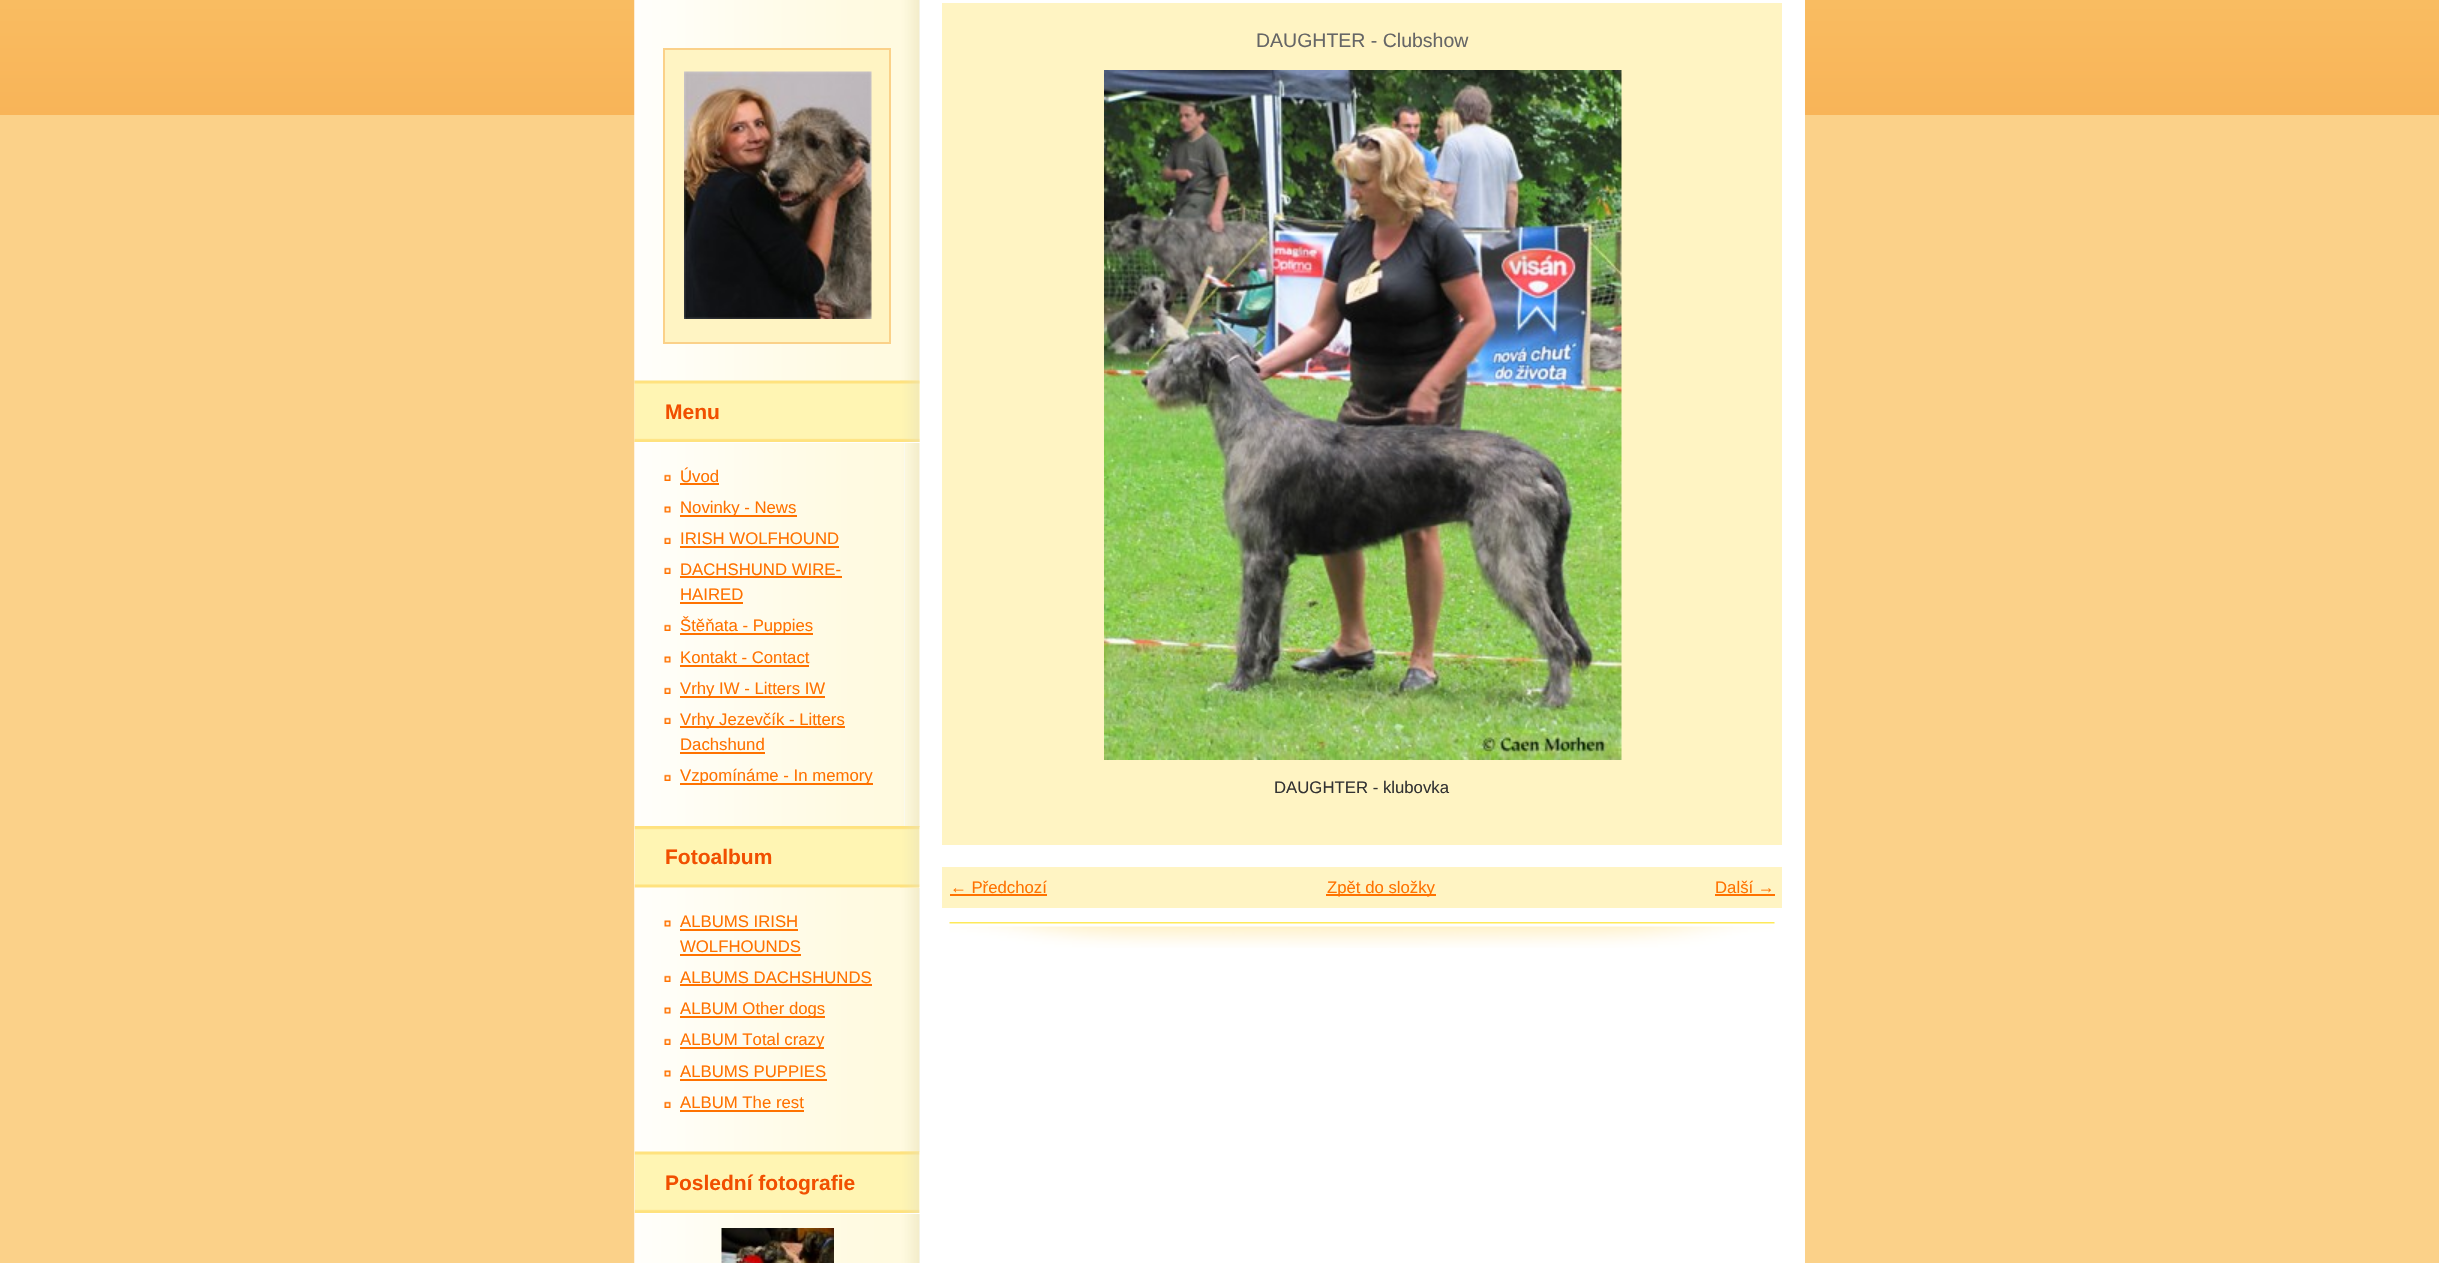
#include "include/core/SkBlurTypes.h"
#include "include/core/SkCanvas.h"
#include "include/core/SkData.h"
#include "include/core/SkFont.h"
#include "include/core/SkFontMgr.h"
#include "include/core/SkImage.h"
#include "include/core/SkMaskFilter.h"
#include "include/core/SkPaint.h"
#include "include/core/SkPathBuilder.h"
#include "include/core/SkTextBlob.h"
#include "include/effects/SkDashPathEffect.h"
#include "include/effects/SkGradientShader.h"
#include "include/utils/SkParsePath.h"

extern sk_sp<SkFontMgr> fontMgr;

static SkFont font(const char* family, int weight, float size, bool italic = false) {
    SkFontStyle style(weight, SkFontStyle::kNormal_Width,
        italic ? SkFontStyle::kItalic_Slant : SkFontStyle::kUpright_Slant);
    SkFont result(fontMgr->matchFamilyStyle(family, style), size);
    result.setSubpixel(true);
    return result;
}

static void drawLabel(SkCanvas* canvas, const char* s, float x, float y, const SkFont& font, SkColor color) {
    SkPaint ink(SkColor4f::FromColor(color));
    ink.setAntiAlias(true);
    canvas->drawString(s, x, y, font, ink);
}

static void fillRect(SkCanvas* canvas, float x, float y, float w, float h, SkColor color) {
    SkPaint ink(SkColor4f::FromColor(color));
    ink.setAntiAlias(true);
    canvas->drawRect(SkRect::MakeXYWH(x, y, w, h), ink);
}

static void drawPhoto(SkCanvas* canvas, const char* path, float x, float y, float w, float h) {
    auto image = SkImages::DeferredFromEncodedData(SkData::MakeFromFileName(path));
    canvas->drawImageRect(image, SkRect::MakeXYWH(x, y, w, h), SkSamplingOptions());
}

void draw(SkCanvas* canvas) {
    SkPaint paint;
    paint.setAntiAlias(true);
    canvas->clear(0xFFFBD189);
    drawPhoto(canvas, "assets/img1.png", 0, 0, 2439, 115);
    fillRect(canvas, 919, 0, 886, 1263, 0xFFFFFFFF);
    drawPhoto(canvas, "assets/img2.png", 634, 0, 286, 1263);
    fillRect(canvas, 635, 0, 285, 381, 0xFFF7FBFE);
    drawPhoto(canvas, "assets/img3.png", 634, 0, 286, 381);
    paint.setColor(0xFFFFF4C3);
    canvas->drawRect(SkRect::MakeXYWH(664, 49, 226, 294), paint);
    paint.setStroke(true);
    paint.setStrokeWidth(2);
    paint.setColor(0xFFFBD189);
    canvas->drawRect(SkRect::MakeXYWH(664, 49, 226, 294), paint);
    drawPhoto(canvas, "assets/img4.png", 684, 71, 188, 248);
    fillRect(canvas, 904, 443, 1, 383, 0xFFF7FBFE);
    drawPhoto(canvas, "assets/img7.png", 634, 442, 271, 384);
    fillRect(canvas, 635, 381, 285, 62, 0xFFFFFFFF);
    drawPhoto(canvas, "assets/img5.png", 634, 380, 286, 62);
    SkFont font1 = font("Liberation Sans", 700, 21);
    drawLabel(canvas, "Menu", 665, 419, font1, 0xFFF14F00);
    drawPhoto(canvas, "assets/img6.png", 900, 380, 20, 62);
    drawPhoto(canvas, "assets/img8.png", 664, 474, 7, 7);
    SkFont font2 = font("Liberation Sans", 400, 16.75f);
    drawLabel(canvas, "Úvod", 680, 482, font2, 0xFFFF7200);
    fillRect(canvas, 680, 483, 39, 2, 0xFFFF7200);
    drawPhoto(canvas, "assets/img9.png", 664, 506, 7, 7);
    fillRect(canvas, 680, 515, 117, 2, 0xFFFF7200);
    drawLabel(canvas, "Novinky - News", 680, 513, font2, 0xFFFF7200);
    drawPhoto(canvas, "assets/img8.png", 664, 537, 7, 7);
    drawLabel(canvas, "IRISH WOLFHOUND", 680, 544, font2, 0xFFFF7200);
    fillRect(canvas, 680, 546, 159, 2, 0xFFFF7200);
    drawPhoto(canvas, "assets/img8.png", 664, 567, 7, 7);
    drawLabel(canvas, "DACHSHUND WIRE-", 680, 575, font2, 0xFFFF7200);
    fillRect(canvas, 680, 576, 162, 2, 0xFFFF7200);
    drawLabel(canvas, "HAIRED", 680, 600, font2, 0xFFFF7200);
    fillRect(canvas, 680, 602, 63, 2, 0xFFFF7200);
    drawPhoto(canvas, "assets/img8.png", 664, 624, 7, 7);
    fillRect(canvas, 680, 633, 133, 2, 0xFFFF7200);
    drawLabel(canvas, "Štěňata - Puppies", 680, 631, font2, 0xFFFF7200);
    drawPhoto(canvas, "assets/img9.png", 664, 656, 7, 7);
    drawLabel(canvas, "Kontakt - Contact", 680, 663, font2, 0xFFFF7200);
    fillRect(canvas, 680, 665, 129, 2, 0xFFFF7200);
    drawPhoto(canvas, "assets/img8.png", 664, 687, 7, 7);
    fillRect(canvas, 680, 696, 145, 2, 0xFFFF7200);
    drawLabel(canvas, "Vrhy IW - Litters IW", 680, 694, font2, 0xFFFF7200);
    drawPhoto(canvas, "assets/img8.png", 664, 717, 7, 7);
    fillRect(canvas, 680, 726, 165, 2, 0xFFFF7200);
    drawLabel(canvas, "Vrhy Jezevčík - Litters", 680, 725, font2, 0xFFFF7200);
    drawLabel(canvas, "Dachshund", 680, 750, font2, 0xFFFF7200);
    fillRect(canvas, 680, 752, 85, 2, 0xFFFF7200);
    drawPhoto(canvas, "assets/img8.png", 664, 774, 7, 7);
    fillRect(canvas, 680, 783, 193, 2, 0xFFFF7200);
    drawLabel(canvas, "Vzpomínáme - In memory", 680, 781, font2, 0xFFFF7200);
    fillRect(canvas, 919, 888, 1, 375, 0xFFF7FBFE);
    drawPhoto(canvas, "assets/img10.png", 634, 826, 286, 437);
    fillRect(canvas, 635, 827, 285, 61, 0xFFFFFFFF);
    drawPhoto(canvas, "assets/img11.png", 634, 826, 286, 62);
    drawLabel(canvas, "Fotoalbum", 665, 864, font1, 0xFFF14F00);
    drawPhoto(canvas, "assets/img12.png", 900, 826, 20, 62);
    drawPhoto(canvas, "assets/img9.png", 664, 920, 7, 7);
    drawLabel(canvas, "ALBUMS IRISH", 680, 927, font2, 0xFFFF7200);
    fillRect(canvas, 680, 929, 118, 2, 0xFFFF7200);
    drawLabel(canvas, "WOLFHOUNDS", 680, 952, font2, 0xFFFF7200);
    fillRect(canvas, 680, 954, 121, 2, 0xFFFF7200);
    drawPhoto(canvas, "assets/img8.png", 664, 975, 7, 7);
    drawLabel(canvas, "ALBUMS DACHSHUNDS", 680, 983, font2, 0xFFFF7200);
    fillRect(canvas, 680, 984, 192, 2, 0xFFFF7200);
    drawPhoto(canvas, "assets/img9.png", 664, 1007, 7, 7);
    fillRect(canvas, 680, 1016, 145, 2, 0xFFFF7200);
    drawLabel(canvas, "ALBUM Other dogs", 680, 1014, font2, 0xFFFF7200);
    drawPhoto(canvas, "assets/img8.png", 664, 1038, 7, 7);
    fillRect(canvas, 680, 1047, 144, 2, 0xFFFF7200);
    drawLabel(canvas, "ALBUM Total crazy", 680, 1045, font2, 0xFFFF7200);
    drawPhoto(canvas, "assets/img9.png", 664, 1070, 7, 7);
    drawLabel(canvas, "ALBUMS PUPPIES", 680, 1077, font2, 0xFFFF7200);
    fillRect(canvas, 680, 1079, 147, 2, 0xFFFF7200);
    drawPhoto(canvas, "assets/img8.png", 664, 1101, 7, 7);
    drawLabel(canvas, "ALBUM The rest", 680, 1108, font2, 0xFFFF7200);
    fillRect(canvas, 680, 1110, 124, 2, 0xFFFF7200);
    fillRect(canvas, 635, 1152, 285, 62, 0xFFFFFFFF);
    drawPhoto(canvas, "assets/img13.png", 634, 1151, 286, 62);
    drawLabel(canvas, "Poslední fotografie", 665, 1190, font1, 0xFFF14F00);
    drawPhoto(canvas, "assets/img14.png", 900, 1151, 20, 62);
    drawPhoto(canvas, "assets/img15.png", 721, 1228, 113, 35);
    drawPhoto(canvas, "assets/img16.png", 949, 922, 826, 26);
    fillRect(canvas, 942, 3, 840, 842, 0xFFFFF4C3);
    SkFont font3 = font("Liberation Sans", 400, 19.5f);
    drawLabel(canvas, "DAUGHTER - Clubshow", 1256, 47, font3, 0xFF666666);
    drawPhoto(canvas, "assets/img17.png", 1104, 70, 518, 690);
    drawLabel(canvas, "DAUGHTER - klubovka", 1274, 793, font2, 0xFF333333);
    fillRect(canvas, 942, 867, 840, 41, 0xFFFFF4C3);
    drawLabel(canvas, "← Předchozí", 950, 893, font2, 0xFFFF7200);
    fillRect(canvas, 950, 894, 97, 2, 0xFFFF7200);
    fillRect(canvas, 1326, 894, 110, 2, 0xFFFF7200);
    drawLabel(canvas, "Zpět do složky", 1327, 893, font2, 0xFFFF7200);
    drawLabel(canvas, "Další →", 1715, 893, font2, 0xFFFF7200);
    fillRect(canvas, 1715, 894, 60, 2, 0xFFFF7200);
}
